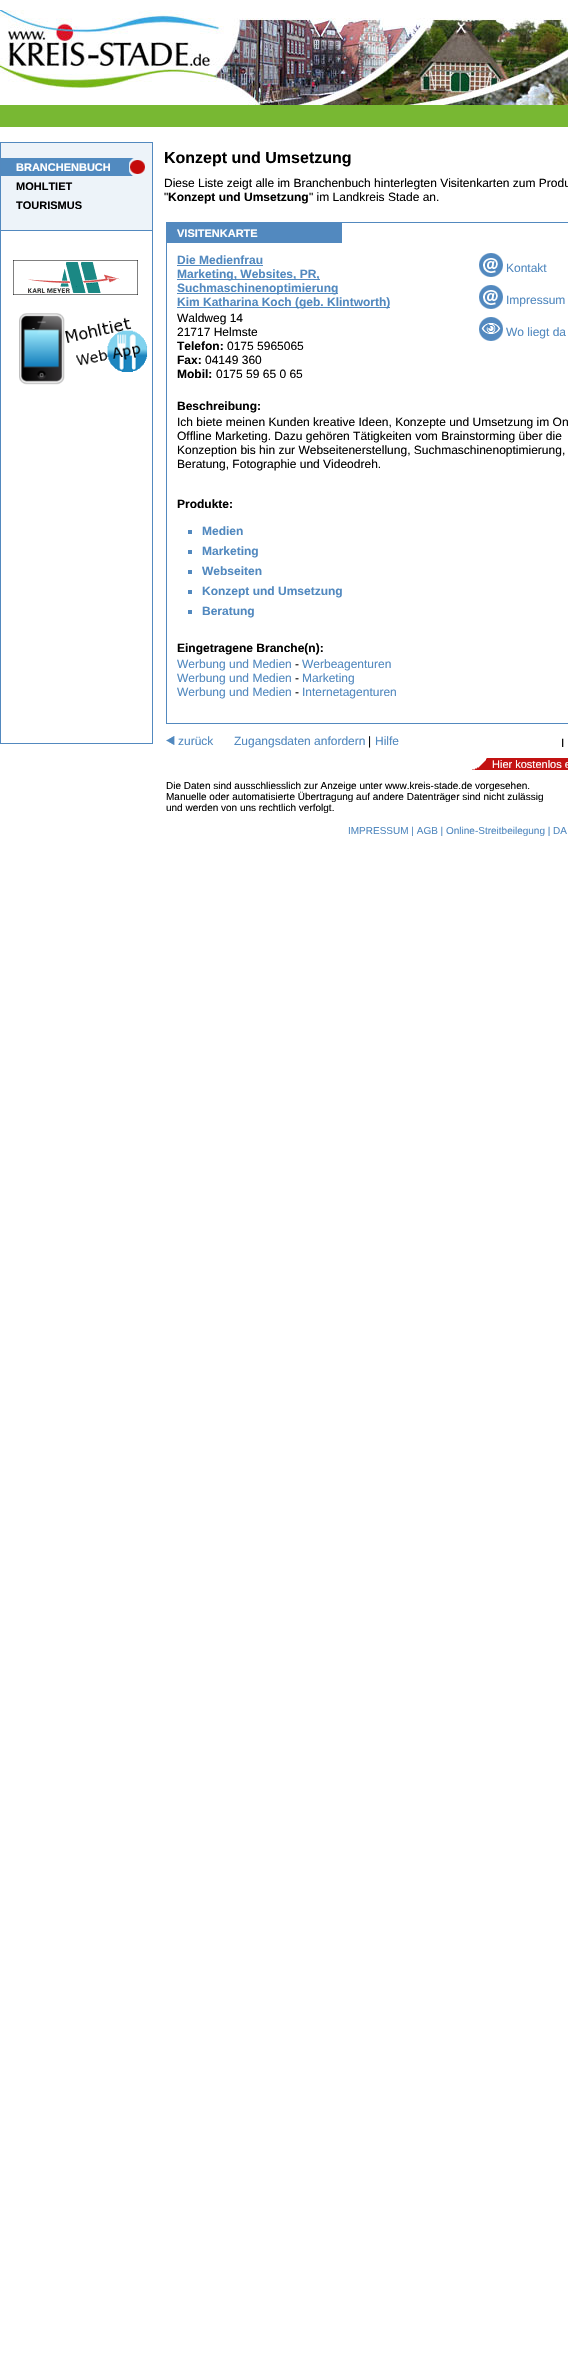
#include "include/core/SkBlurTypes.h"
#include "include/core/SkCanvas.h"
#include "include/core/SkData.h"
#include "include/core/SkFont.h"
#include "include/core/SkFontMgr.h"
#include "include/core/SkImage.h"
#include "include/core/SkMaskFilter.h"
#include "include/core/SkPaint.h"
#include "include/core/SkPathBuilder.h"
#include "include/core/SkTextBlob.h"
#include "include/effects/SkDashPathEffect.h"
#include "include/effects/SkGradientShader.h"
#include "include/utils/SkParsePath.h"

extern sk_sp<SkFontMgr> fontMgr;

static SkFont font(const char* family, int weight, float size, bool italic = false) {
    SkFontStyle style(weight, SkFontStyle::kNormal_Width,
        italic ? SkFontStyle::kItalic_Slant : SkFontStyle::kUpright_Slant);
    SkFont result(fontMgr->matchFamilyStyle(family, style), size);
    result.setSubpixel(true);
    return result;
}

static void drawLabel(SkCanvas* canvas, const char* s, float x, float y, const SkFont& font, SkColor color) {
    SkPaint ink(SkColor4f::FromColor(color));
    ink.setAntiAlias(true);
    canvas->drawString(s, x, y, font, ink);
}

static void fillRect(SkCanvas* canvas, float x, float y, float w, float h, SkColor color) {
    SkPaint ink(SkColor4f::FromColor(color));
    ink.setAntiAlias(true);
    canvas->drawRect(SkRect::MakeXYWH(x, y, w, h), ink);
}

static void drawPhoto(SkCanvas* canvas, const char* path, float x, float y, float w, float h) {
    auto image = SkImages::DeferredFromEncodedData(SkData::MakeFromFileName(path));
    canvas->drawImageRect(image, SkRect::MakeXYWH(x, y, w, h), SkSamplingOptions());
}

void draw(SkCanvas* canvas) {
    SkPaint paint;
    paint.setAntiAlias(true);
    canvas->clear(0xFFFFFFFF);
    drawPhoto(canvas, "assets/img1.png", 0, 10, 568, 95);
    fillRect(canvas, 0, 105, 568, 22, 0xFF78B833);
    paint.setStroke(true);
    paint.setStrokeWidth(1);
    paint.setColor(0xFF5289BF);
    canvas->drawRect(SkRect::MakeXYWH(0.5f, 142.5f, 152, 601), paint);
    fillRect(canvas, 1, 143, 151, 87, 0xFFEDF3F9);
    fillRect(canvas, 1, 230, 151, 1, 0xFF5289BF);
    drawPhoto(canvas, "assets/img2.png", 1, 158, 144, 18);
    SkFont font1 = font("Liberation Sans", 700, 11);
    drawLabel(canvas, "BRANCHENBUCH", 16, 171, font1, 0xFFFFFFFF);
    drawLabel(canvas, "MOHLTIET", 16, 190, font1, 0xFF000000);
    drawLabel(canvas, "TOURISMUS", 16, 209, font1, 0xFF000000);
    drawPhoto(canvas, "assets/img3.png", 13, 260, 125, 35);
    drawPhoto(canvas, "assets/img4.png", 19, 313, 129, 72);
    SkFont font2 = font("Liberation Sans", 700, 16);
    drawLabel(canvas, "Konzept und Umsetzung", 164, 163, font2, 0xFF000000);
    SkFont font3 = font("Liberation Sans", 400, 12);
    drawLabel(canvas, "Diese Liste zeigt alle im Branchenbuch hinterlegten Visitenkarten zum Produ", 164, 187, font3, 0xFF000000);
    drawLabel(canvas, "\"", 164, 201, font3, 0xFF000000);
    SkFont font4 = font("Liberation Sans", 700, 12);
    drawLabel(canvas, "Konzept und Umsetzung", 168, 201, font4, 0xFF000000);
    drawLabel(canvas, "\" im Landkreis Stade an.", 309, 201, font3, 0xFF000000);
    canvas->drawRect(SkRect::MakeXYWH(166.5f, 222.5f, 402, 501), paint);
    fillRect(canvas, 167, 223, 175, 20, 0xFF5289BF);
    drawLabel(canvas, "VISITENKARTE", 177, 237, font1, 0xFFFFFFFF);
    drawLabel(canvas, "Die Medienfrau", 177, 264, font4, 0xFF5289BF);
    fillRect(canvas, 177, 265, 86, 1, 0xFF5289BF);
    fillRect(canvas, 177, 279, 143, 1, 0xFF5289BF);
    drawLabel(canvas, "Marketing, Websites, PR,", 177, 278, font4, 0xFF5289BF);
    fillRect(canvas, 177, 293, 161, 1, 0xFF5289BF);
    drawLabel(canvas, "Suchmaschinenoptimierung", 177, 292, font4, 0xFF5289BF);
    fillRect(canvas, 177, 307, 213, 1, 0xFF5289BF);
    drawLabel(canvas, "Kim Katharina Koch (geb. Klintworth)", 177, 306, font4, 0xFF5289BF);
    drawLabel(canvas, "Waldweg 14", 177, 322, font3, 0xFF000000);
    drawLabel(canvas, "21717 Helmste", 177, 336, font3, 0xFF000000);
    drawLabel(canvas, "Telefon:", 177, 350, font4, 0xFF000000);
    drawLabel(canvas, "0175 5965065", 227, 350, font3, 0xFF000000);
    drawLabel(canvas, "Fax:", 177, 364, font4, 0xFF000000);
    drawLabel(canvas, "04149 360", 205, 364, font3, 0xFF000000);
    drawLabel(canvas, "Mobil:", 177, 378, font4, 0xFF000000);
    drawLabel(canvas, "0175 59 65 0 65", 216, 378, font3, 0xFF000000);
    drawPhoto(canvas, "assets/img5.png", 479, 253, 24, 24);
    drawLabel(canvas, "Kontakt", 506, 272, font3, 0xFF5289BF);
    drawPhoto(canvas, "assets/img5.png", 479, 285, 24, 24);
    drawLabel(canvas, "Impressum", 506, 304, font3, 0xFF5289BF);
    drawPhoto(canvas, "assets/img6.png", 479, 317, 24, 24);
    drawLabel(canvas, "Wo liegt da", 506, 336, font3, 0xFF5289BF);
    drawLabel(canvas, "Beschreibung:", 177, 410, font4, 0xFF000000);
    drawLabel(canvas, "Ich biete meinen Kunden kreative Ideen, Konzepte und Umsetzung im On", 177, 426, font3, 0xFF000000);
    drawLabel(canvas, "Offline Marketing. Dazu gehören Tätigkeiten vom Brainstorming über die", 177, 440, font3, 0xFF000000);
    drawLabel(canvas, "Konzeption bis hin zur Webseitenerstellung, Suchmaschinenoptimierung,", 177, 454, font3, 0xFF000000);
    drawLabel(canvas, "Beratung, Fotographie und Videodreh.", 177, 468, font3, 0xFF000000);
    drawLabel(canvas, "Produkte:", 177, 508, font4, 0xFF000000);
    fillRect(canvas, 188, 530, 4, 4, 0xFF5289BF);
    drawLabel(canvas, "Medien", 202, 535, font4, 0xFF5289BF);
    fillRect(canvas, 188, 550, 4, 4, 0xFF5289BF);
    drawLabel(canvas, "Marketing", 202, 555, font4, 0xFF5289BF);
    fillRect(canvas, 188, 570, 4, 4, 0xFF5289BF);
    drawLabel(canvas, "Webseiten", 202, 575, font4, 0xFF5289BF);
    fillRect(canvas, 188, 590, 4, 4, 0xFF5289BF);
    drawLabel(canvas, "Konzept und Umsetzung", 202, 595, font4, 0xFF5289BF);
    fillRect(canvas, 188, 610, 4, 4, 0xFF5289BF);
    drawLabel(canvas, "Beratung", 202, 615, font4, 0xFF5289BF);
    drawLabel(canvas, "Eingetragene Branche(n):", 177, 652, font4, 0xFF000000);
    drawLabel(canvas, "Werbung und Medien", 177, 668, font3, 0xFF5289BF);
    drawLabel(canvas, "-", 295, 668, font3, 0xFF000000);
    drawLabel(canvas, "Werbeagenturen", 302, 668, font3, 0xFF5289BF);
    drawLabel(canvas, "Werbung und Medien", 177, 682, font3, 0xFF5289BF);
    drawLabel(canvas, "-", 295, 682, font3, 0xFF000000);
    drawLabel(canvas, "Marketing", 302, 682, font3, 0xFF5289BF);
    drawLabel(canvas, "Werbung und Medien", 177, 696, font3, 0xFF5289BF);
    drawLabel(canvas, "-", 295, 696, font3, 0xFF000000);
    drawLabel(canvas, "Internetagenturen", 302, 696, font3, 0xFF5289BF);
    drawPhoto(canvas, "assets/img7.png", 166, 736, 9, 9);
    drawLabel(canvas, "zurück", 178, 745, font3, 0xFF5289BF);
    drawLabel(canvas, "Zugangsdaten anfordern", 234, 745, font3, 0xFF5289BF);
    drawLabel(canvas, "|", 368, 745, font3, 0xFF000000);
    drawLabel(canvas, "Hilfe", 375, 745, font3, 0xFF5289BF);
    drawLabel(canvas, "I", 561, 747, font3, 0xFF000000);
    drawPhoto(canvas, "assets/img8.png", 472, 758, 96, 12);
    SkFont font5 = font("Liberation Sans", 400, 11);
    drawLabel(canvas, "Hier kostenlos e", 492, 768, font5, 0xFFFFFFFF);
    SkFont font6 = font("Liberation Sans", 400, 10);
    drawLabel(canvas, "Die Daten sind ausschliesslich zur Anzeige unter www.kreis-stade.de vorgesehen.", 166, 789, font6, 0xFF000000);
    drawLabel(canvas, "Manuelle oder automatisierte Übertragung auf andere Datenträger sind nicht zulässig", 166, 800, font6, 0xFF000000);
    drawLabel(canvas, "und werden von uns rechtlich verfolgt.", 166, 811, font6, 0xFF000000);
    drawLabel(canvas, "IMPRESSUM | AGB | Online-Streitbeilegung | DA", 348, 834, font6, 0xFF5289BF);
}
